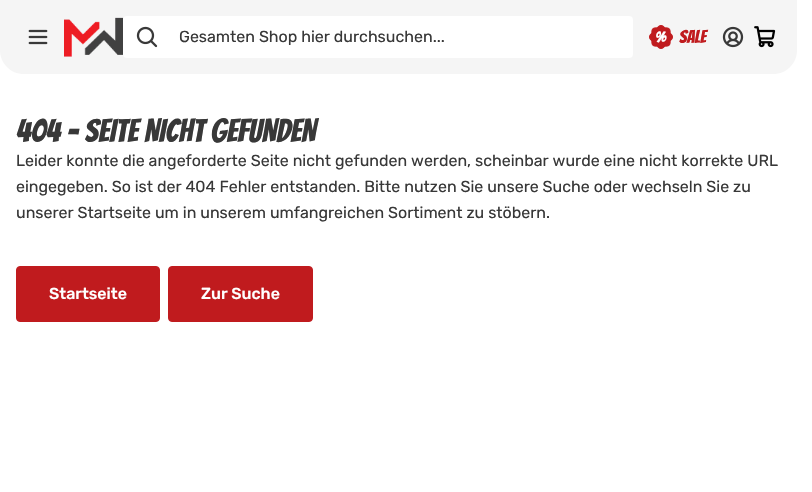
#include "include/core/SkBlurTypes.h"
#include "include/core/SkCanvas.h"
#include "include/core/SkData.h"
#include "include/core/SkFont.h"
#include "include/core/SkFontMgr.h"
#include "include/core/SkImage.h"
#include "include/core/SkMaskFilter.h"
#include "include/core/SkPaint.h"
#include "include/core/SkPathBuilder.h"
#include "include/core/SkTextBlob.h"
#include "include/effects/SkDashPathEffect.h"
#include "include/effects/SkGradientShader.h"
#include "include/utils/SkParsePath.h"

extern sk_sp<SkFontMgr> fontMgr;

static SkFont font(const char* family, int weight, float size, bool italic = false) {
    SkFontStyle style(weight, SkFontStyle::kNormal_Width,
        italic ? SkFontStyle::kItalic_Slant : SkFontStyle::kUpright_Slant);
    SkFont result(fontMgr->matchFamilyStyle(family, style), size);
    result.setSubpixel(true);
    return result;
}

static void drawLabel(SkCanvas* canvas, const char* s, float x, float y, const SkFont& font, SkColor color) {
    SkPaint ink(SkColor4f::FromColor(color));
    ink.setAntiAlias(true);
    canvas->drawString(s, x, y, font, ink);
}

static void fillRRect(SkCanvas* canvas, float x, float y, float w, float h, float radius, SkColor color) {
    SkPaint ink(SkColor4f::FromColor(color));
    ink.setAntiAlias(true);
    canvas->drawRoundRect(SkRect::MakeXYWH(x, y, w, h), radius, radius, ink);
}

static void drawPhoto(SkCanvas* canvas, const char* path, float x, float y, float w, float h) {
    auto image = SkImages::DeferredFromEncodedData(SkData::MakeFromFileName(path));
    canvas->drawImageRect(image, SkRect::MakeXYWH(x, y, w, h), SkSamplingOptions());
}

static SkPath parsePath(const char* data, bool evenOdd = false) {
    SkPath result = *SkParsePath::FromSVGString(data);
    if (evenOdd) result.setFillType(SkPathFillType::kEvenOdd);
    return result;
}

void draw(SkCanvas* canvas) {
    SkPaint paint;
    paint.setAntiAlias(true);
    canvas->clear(0xFFFFFFFF);
    paint.setColor(0xFFF5F5F5);
    canvas->drawPath(parsePath("M0 0H797V50C797 63.5 786.5 74 773 74H24C10.5 74 0 63.5 0 50Z"), paint);
    drawPhoto(canvas, "assets/img1.png", 28, 29, 20, 16);
    drawPhoto(canvas, "assets/img2.png", 64, 17, 59, 40);
    fillRRect(canvas, 123, 16, 510, 42, 4, 0xFFFFFFFF);
    drawPhoto(canvas, "assets/img3.png", 136, 26, 22, 22);
    SkFont font1 = font("Rubik", 400, 16);
    drawLabel(canvas, "Gesamten Shop hier durchsuchen...", 179, 42, font1, 0xFF383838);
    drawPhoto(canvas, "assets/img4.png", 649, 25, 24, 24);
    SkFont font2 = font("Bangers", 400, 14);
    drawLabel(canvas, "%", 655, 42, font2, 0xFFFFFFFF);
    SkFont font3 = font("Bangers", 400, 18);
    drawLabel(canvas, "Sale", 679, 43, font3, 0xFFC01B1E);
    drawPhoto(canvas, "assets/img5.png", 722, 26, 22, 22);
    drawPhoto(canvas, "assets/img6.png", 754, 26, 22, 22);
    SkFont font4 = font("Bangers", 400, 32);
    drawLabel(canvas, "404 - SEITE NICHT GEFUNDEN", 16, 142, font4, 0xFF383838);
    drawLabel(canvas, "Leider konnte die angeforderte Seite nicht gefunden werden, scheinbar wurde eine nicht korrekte URL", 16, 166, font1, 0xFF383838);
    drawLabel(canvas, "eingegeben. So ist der 404 Fehler entstanden. Bitte nutzen Sie unsere Suche oder wechseln Sie zu", 16, 192, font1, 0xFF383838);
    drawLabel(canvas, "unserer Startseite um in unserem umfangreichen Sortiment zu stöbern.", 16, 218, font1, 0xFF383838);
    paint.setColor(0xFFC01B1E);
    canvas->drawRoundRect(SkRect::MakeXYWH(16.5f, 266.5f, 143, 55), 3.5f, 3.5f, paint);
    paint.setStroke(true);
    paint.setStrokeWidth(1);
    canvas->drawRoundRect(SkRect::MakeXYWH(16.5f, 266.5f, 143, 55), 3.5f, 3.5f, paint);
    SkFont font5 = font("Rubik", 500, 16);
    drawLabel(canvas, "Startseite", 49, 299, font5, 0xFFFFFFFF);
    paint.setStroke(false);
    canvas->drawRoundRect(SkRect::MakeXYWH(168.5f, 266.5f, 144, 55), 3.5f, 3.5f, paint);
    paint.setStroke(true);
    canvas->drawRoundRect(SkRect::MakeXYWH(168.5f, 266.5f, 144, 55), 3.5f, 3.5f, paint);
    drawLabel(canvas, "Zur Suche", 201, 299, font5, 0xFFFFFFFF);
}
